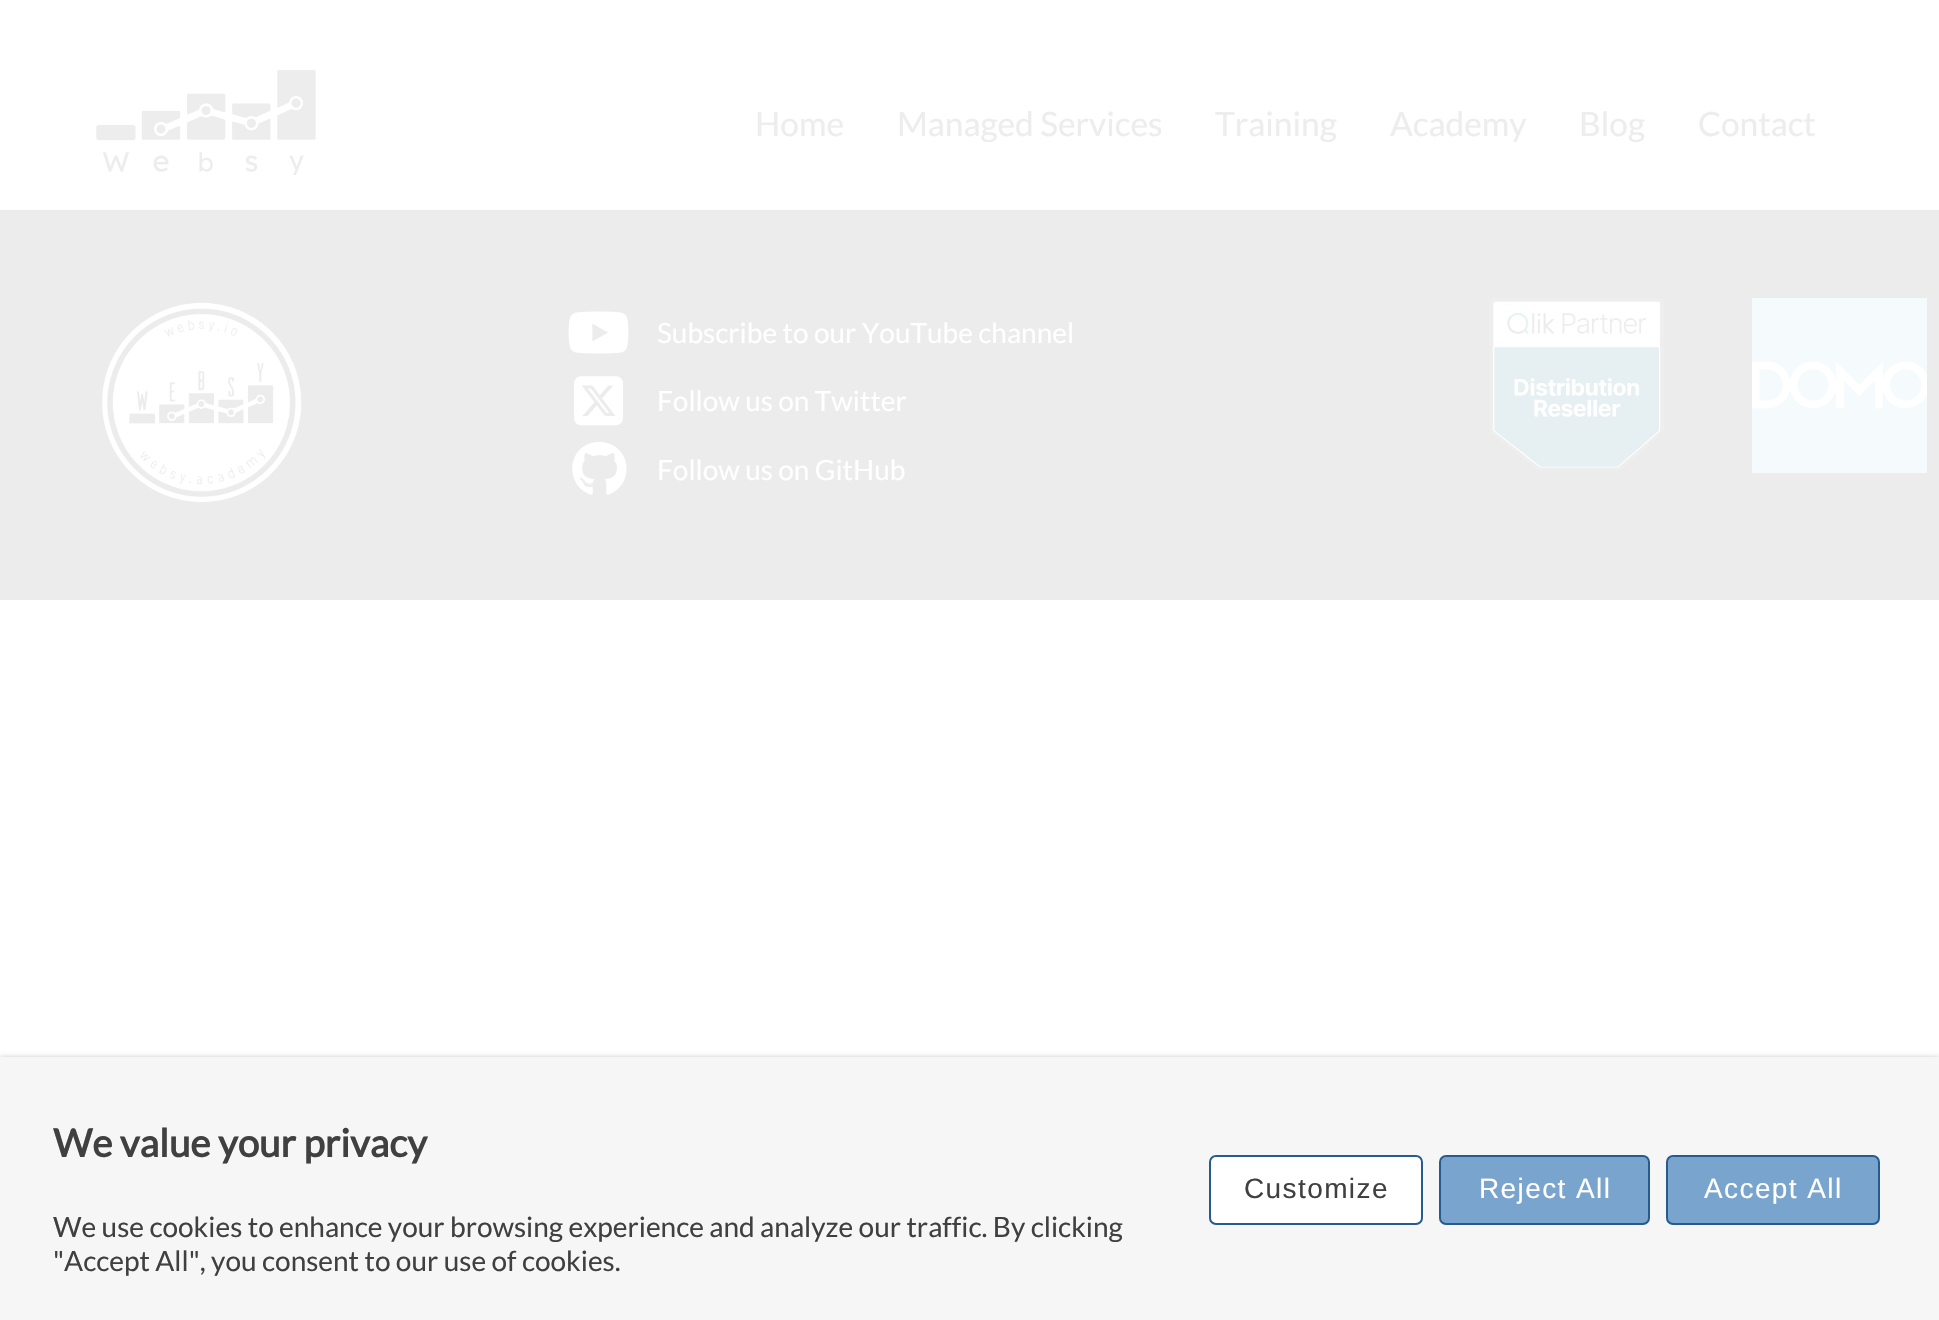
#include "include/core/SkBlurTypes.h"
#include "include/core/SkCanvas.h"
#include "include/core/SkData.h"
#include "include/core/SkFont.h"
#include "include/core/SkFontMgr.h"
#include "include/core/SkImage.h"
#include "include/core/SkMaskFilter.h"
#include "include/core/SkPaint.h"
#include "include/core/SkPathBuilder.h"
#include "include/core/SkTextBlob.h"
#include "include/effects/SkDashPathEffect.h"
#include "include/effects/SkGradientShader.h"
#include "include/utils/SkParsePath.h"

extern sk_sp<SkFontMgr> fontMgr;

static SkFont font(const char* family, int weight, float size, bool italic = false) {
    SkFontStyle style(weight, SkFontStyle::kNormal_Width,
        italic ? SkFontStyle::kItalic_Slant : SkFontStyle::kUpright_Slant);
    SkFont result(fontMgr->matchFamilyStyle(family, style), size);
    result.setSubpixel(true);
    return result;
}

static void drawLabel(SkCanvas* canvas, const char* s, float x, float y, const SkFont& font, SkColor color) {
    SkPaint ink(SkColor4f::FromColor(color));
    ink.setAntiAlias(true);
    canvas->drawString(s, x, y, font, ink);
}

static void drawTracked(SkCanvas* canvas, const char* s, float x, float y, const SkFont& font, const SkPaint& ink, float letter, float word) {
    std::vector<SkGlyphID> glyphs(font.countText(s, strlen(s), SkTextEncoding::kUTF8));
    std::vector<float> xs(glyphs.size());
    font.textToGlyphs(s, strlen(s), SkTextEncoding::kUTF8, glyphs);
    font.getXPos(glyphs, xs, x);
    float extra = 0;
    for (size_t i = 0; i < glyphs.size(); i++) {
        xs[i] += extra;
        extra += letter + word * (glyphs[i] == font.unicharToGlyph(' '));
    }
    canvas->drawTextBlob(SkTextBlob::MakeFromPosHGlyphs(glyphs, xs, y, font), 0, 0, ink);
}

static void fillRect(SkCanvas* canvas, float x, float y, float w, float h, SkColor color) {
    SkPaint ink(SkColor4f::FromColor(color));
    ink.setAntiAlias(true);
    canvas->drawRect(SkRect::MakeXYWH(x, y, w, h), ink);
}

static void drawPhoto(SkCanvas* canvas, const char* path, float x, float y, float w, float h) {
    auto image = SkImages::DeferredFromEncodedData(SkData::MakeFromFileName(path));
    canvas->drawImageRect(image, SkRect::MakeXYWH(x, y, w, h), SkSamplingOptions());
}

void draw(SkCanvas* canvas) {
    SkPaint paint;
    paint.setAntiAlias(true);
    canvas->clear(0xFFFFFFFF);
    drawPhoto(canvas, "assets/img1.png", 96, 70, 220, 105);
    SkFont font1 = font("Lato", 400, 33.5f);
    drawLabel(canvas, "Home", 755, 136, font1, 0xFFEDEDED);
    drawLabel(canvas, "Managed Services", 897, 136, font1, 0xFFEDEDED);
    drawLabel(canvas, "Training", 1215, 136, font1, 0xFFEDEDED);
    drawLabel(canvas, "Academy", 1390, 136, font1, 0xFFEDEDED);
    drawLabel(canvas, "Blog", 1579, 136, font1, 0xFFEDEDED);
    drawLabel(canvas, "Contact", 1698, 136, font1, 0xFFEDEDED);
    fillRect(canvas, 0, 210, 1939, 390, 0xFFECECEC);
    drawPhoto(canvas, "assets/img2.png", 102, 302, 200, 200);
    drawPhoto(canvas, "assets/img3.png", 568, 311, 61, 43);
    SkFont font2 = font("Lato", 400, 28);
    drawLabel(canvas, "Subscribe to our YouTube channel", 657, 343, font2, 0xFFFFFFFF);
    drawPhoto(canvas, "assets/img4.png", 574, 376, 49, 50);
    drawLabel(canvas, "Follow us on Twitter", 657, 411, font2, 0xFFFFFFFF);
    drawPhoto(canvas, "assets/img5.png", 572, 441, 55, 54);
    drawLabel(canvas, "Follow us on GitHub", 657, 480, font2, 0xFFFFFFFF);
    drawPhoto(canvas, "assets/img6.png", 1489, 298, 175, 173);
    drawPhoto(canvas, "assets/img7.png", 1752, 298, 175, 175);
    paint.setColor(0xFFCCCCCC);
    paint.setMaskFilter(SkMaskFilter::MakeBlur(kNormal_SkBlurStyle, 2.5f));
    canvas->drawRect(SkRect::MakeXYWH(0, 1057, 1939, 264), paint);
    paint.setMaskFilter(nullptr);
    fillRect(canvas, 0, 1057, 1939, 263, 0xFFF6F6F6);
    SkFont font3 = font("Lato", 700, 38.5f);
    drawLabel(canvas, "We value your privacy", 53, 1157, font3, 0xFF404040);
    drawLabel(canvas, "We use cookies to enhance your browsing experience and analyze our traffic. By clicking", 53, 1237, font2, 0xFF404040);
    drawLabel(canvas, "\"Accept All\", you consent to our use of cookies.", 53, 1271, font2, 0xFF404040);
    paint.setColor(0xFFFFFFFF);
    canvas->drawRoundRect(SkRect::MakeXYWH(1210, 1156, 212, 68), 6, 6, paint);
    paint.setStroke(true);
    paint.setStrokeWidth(2);
    paint.setColor(0xFF275B8D);
    canvas->drawRoundRect(SkRect::MakeXYWH(1210, 1156, 212, 68), 6, 6, paint);
    SkFont font4 = font("Liberation Sans", 400, 28);
    paint.setStroke(false);
    paint.setColor(0xFF404040);
    drawTracked(canvas, "Customize", 1244, 1198, font4, paint, 1.4f, 0);
    paint.setColor(0xFF79A4CD);
    canvas->drawRoundRect(SkRect::MakeXYWH(1440, 1156, 209, 68), 6, 6, paint);
    paint.setStroke(true);
    paint.setColor(0xFF275B8D);
    canvas->drawRoundRect(SkRect::MakeXYWH(1440, 1156, 209, 68), 6, 6, paint);
    paint.setStroke(false);
    paint.setColor(0xFFFFFFFF);
    drawTracked(canvas, "Reject All", 1479, 1198, font4, paint, 1.4f, 0);
    paint.setColor(0xFF79A4CD);
    canvas->drawRoundRect(SkRect::MakeXYWH(1667, 1156, 212, 68), 6, 6, paint);
    paint.setStroke(true);
    paint.setColor(0xFF275B8D);
    canvas->drawRoundRect(SkRect::MakeXYWH(1667, 1156, 212, 68), 6, 6, paint);
    paint.setStroke(false);
    paint.setColor(0xFFFFFFFF);
    drawTracked(canvas, "Accept All", 1704, 1198, font4, paint, 1.4f, 0);
}
